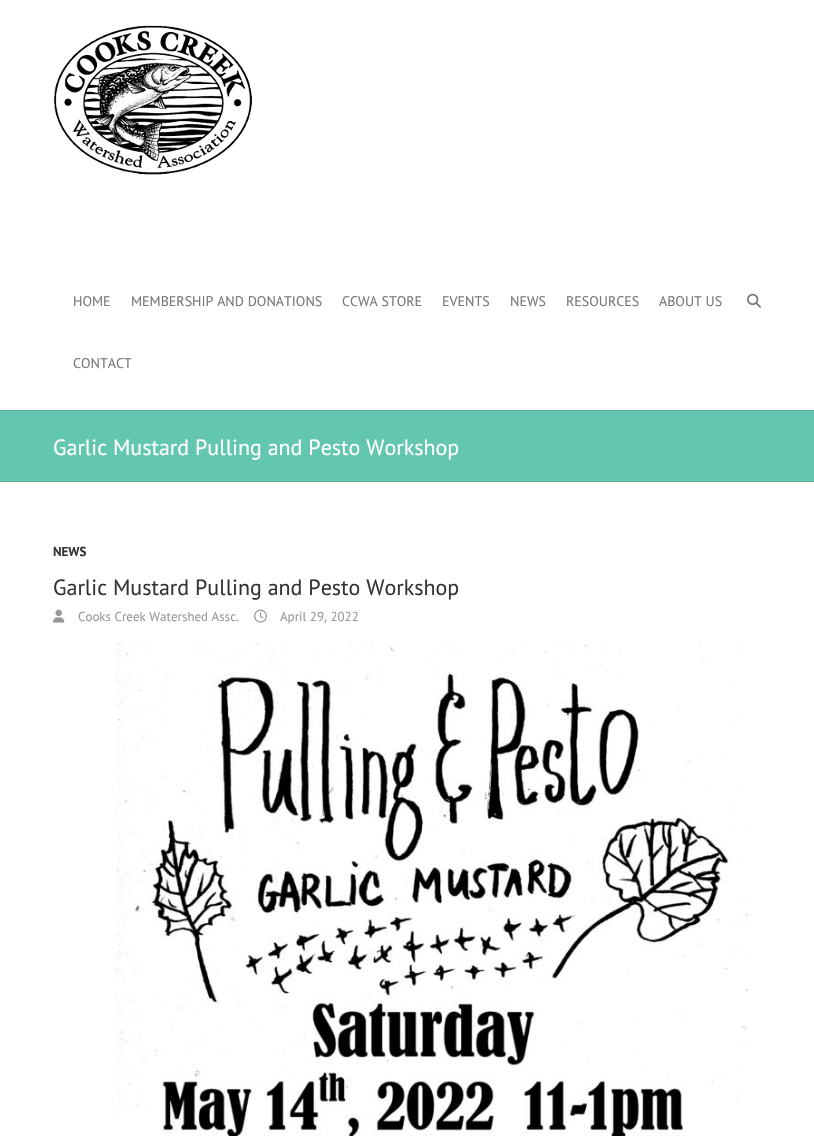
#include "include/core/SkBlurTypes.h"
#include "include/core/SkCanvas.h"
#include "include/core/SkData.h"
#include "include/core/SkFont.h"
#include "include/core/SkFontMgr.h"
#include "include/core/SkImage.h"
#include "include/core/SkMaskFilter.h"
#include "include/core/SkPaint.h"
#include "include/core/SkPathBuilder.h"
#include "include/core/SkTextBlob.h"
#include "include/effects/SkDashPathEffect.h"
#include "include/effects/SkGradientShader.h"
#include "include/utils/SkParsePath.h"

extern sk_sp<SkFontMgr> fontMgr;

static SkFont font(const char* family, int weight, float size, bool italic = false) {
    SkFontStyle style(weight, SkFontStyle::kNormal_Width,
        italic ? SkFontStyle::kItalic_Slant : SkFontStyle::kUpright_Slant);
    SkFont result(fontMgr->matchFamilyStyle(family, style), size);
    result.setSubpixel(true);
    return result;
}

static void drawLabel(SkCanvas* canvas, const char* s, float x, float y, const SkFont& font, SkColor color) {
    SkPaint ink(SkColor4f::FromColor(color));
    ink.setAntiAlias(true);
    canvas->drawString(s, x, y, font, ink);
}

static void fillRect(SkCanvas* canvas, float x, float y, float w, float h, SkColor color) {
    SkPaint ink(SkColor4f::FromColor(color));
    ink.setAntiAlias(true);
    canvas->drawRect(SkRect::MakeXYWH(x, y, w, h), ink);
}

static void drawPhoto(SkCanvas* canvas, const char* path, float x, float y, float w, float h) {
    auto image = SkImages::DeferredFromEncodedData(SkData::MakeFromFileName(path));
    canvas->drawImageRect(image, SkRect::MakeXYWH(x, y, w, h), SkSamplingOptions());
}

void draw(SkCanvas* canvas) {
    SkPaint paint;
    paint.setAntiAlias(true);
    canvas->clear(0xFFFFFFFF);
    drawPhoto(canvas, "assets/img1.png", 53, 25, 199, 150);
    SkFont font1 = font("PT Sans", 400, 14);
    drawLabel(canvas, "HOME", 73, 306, font1, 0xFF777777);
    drawLabel(canvas, "MEMBERSHIP AND DONATIONS", 131, 306, font1, 0xFF777777);
    drawLabel(canvas, "CCWA STORE", 342, 306, font1, 0xFF777777);
    drawLabel(canvas, "EVENTS", 442, 306, font1, 0xFF777777);
    drawLabel(canvas, "NEWS", 510, 306, font1, 0xFF777777);
    drawLabel(canvas, "RESOURCES", 566, 306, font1, 0xFF777777);
    drawLabel(canvas, "ABOUT US", 659, 306, font1, 0xFF777777);
    drawLabel(canvas, "CONTACT", 73, 368, font1, 0xFF777777);
    drawPhoto(canvas, "assets/img2.png", 747, 293, 14, 15);
    fillRect(canvas, 0, 411, 814, 70, 0xFF63C6AE);
    fillRect(canvas, 0, 410, 814, 1, 0xFF59B29D);
    fillRect(canvas, 0, 481, 814, 1, 0xFF59B29D);
    SkFont font2 = font("PT Sans", 400, 22);
    drawLabel(canvas, "Garlic Mustard Pulling and Pesto Workshop", 53, 455, font2, 0xFFFFFFFF);
    SkFont font3 = font("PT Sans", 700, 13);
    drawLabel(canvas, "NEWS", 53, 556, font3, 0xFF333333);
    drawLabel(canvas, "Garlic Mustard Pulling and Pesto Workshop", 53, 595, font2, 0xFF333333);
    drawPhoto(canvas, "assets/img3.png", 53, 609, 12, 14);
    SkFont font4 = font("PT Sans", 400, 13);
    drawLabel(canvas, "Cooks Creek Watershed Assc.", 78, 621, font4, 0xFF999999);
    drawPhoto(canvas, "assets/img4.png", 254, 609, 13, 14);
    drawLabel(canvas, "April 29, 2022", 280, 621, font4, 0xFF999999);
    drawPhoto(canvas, "assets/img5.png", 115, 643, 634, 493);
}
